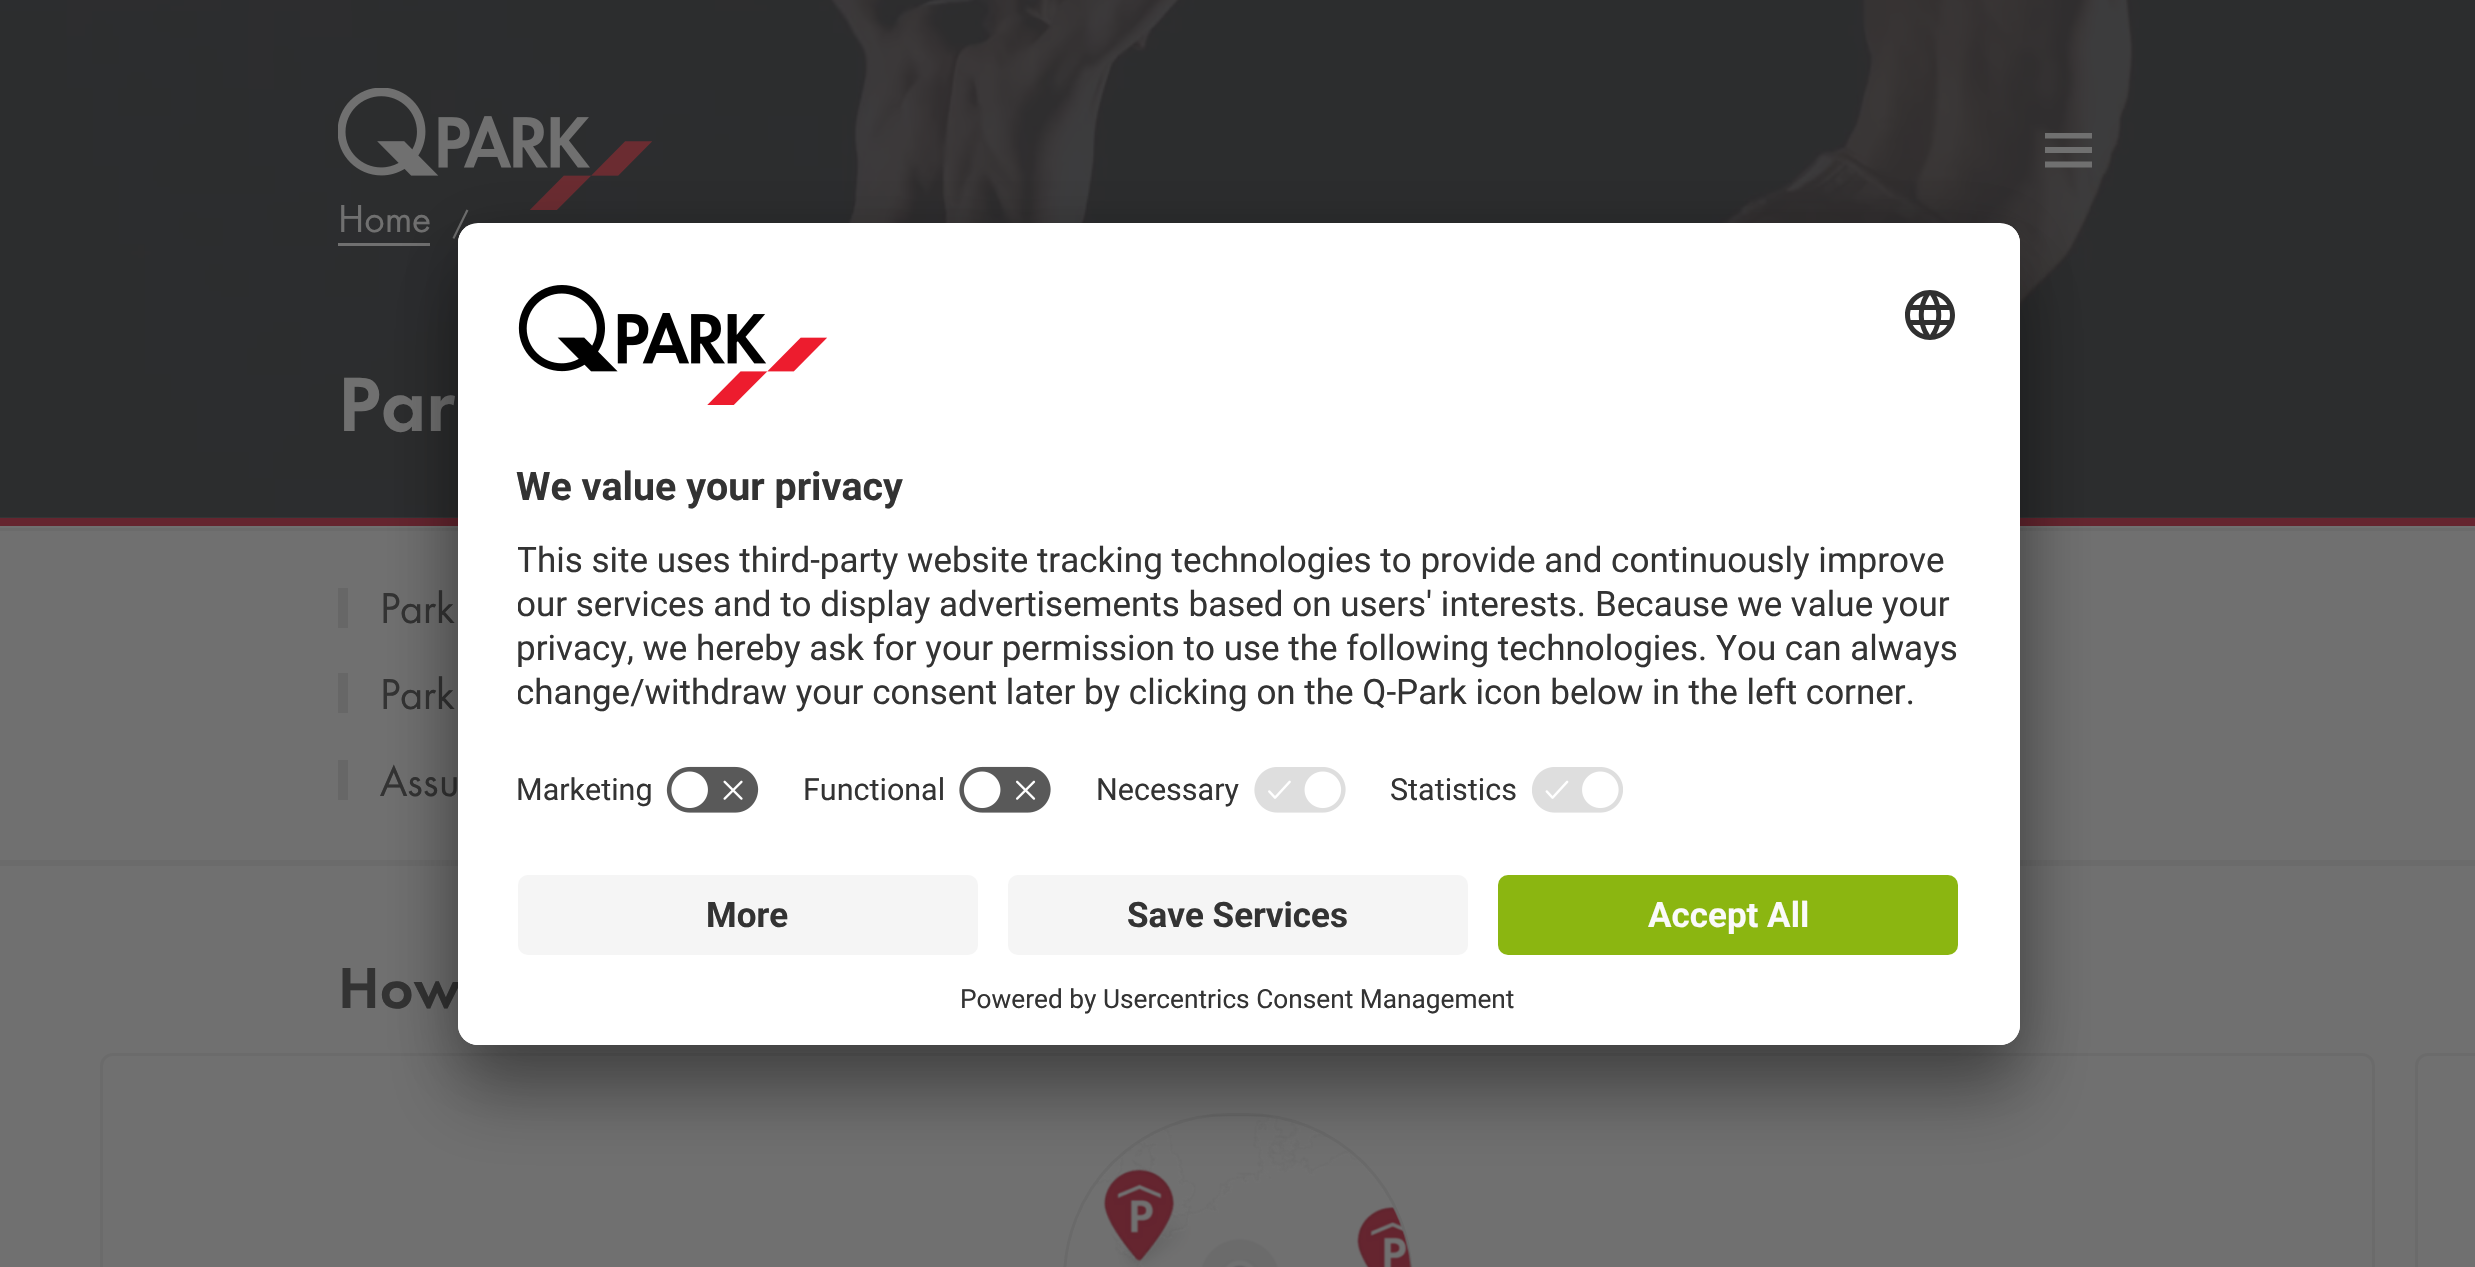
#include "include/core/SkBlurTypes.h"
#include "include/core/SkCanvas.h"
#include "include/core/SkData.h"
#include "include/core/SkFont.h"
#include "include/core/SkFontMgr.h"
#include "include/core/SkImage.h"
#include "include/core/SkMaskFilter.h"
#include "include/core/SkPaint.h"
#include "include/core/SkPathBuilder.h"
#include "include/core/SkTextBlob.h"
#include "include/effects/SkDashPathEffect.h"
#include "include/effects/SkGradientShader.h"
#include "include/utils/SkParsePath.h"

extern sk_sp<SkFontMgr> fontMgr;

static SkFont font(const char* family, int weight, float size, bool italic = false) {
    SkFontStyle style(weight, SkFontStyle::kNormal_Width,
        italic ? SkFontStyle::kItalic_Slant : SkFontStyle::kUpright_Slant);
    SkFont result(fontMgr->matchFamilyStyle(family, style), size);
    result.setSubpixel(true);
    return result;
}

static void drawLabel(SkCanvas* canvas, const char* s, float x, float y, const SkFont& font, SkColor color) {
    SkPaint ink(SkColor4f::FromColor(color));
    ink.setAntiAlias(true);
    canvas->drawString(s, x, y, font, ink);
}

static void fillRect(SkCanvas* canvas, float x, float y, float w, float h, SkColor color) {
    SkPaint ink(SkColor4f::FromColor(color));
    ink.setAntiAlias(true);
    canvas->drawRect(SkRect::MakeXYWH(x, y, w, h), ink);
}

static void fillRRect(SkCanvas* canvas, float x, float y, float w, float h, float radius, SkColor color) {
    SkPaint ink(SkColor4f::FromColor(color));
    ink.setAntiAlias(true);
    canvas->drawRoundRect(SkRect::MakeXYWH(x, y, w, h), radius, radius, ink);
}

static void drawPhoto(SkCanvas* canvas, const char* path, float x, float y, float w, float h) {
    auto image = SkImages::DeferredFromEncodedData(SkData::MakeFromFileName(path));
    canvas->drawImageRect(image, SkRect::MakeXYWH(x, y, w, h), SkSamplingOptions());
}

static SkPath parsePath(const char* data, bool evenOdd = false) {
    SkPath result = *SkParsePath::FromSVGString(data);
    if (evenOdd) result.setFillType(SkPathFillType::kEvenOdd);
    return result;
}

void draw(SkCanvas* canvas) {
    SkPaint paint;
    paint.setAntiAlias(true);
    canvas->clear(0xFF707070);
    fillRect(canvas, 0, 517, 2475, 1, 0xFF3B3C3E);
    drawPhoto(canvas, "assets/img2.png", 0, 0, 2475, 518);
    SkFont font1 = font("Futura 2", 400, 40.5f);
    drawLabel(canvas, "Home", 338, 232, font1, 0xFF707070);
    SkFont font2 = font("Futura 2", 400, 32);
    drawLabel(canvas, "/", 453, 233, font2, 0xFF707070);
    drawPhoto(canvas, "assets/img1.png", 338, 88, 314, 122);
    fillRect(canvas, 2045, 147, 47, 6, 0xFF707070);
    canvas->save();
    canvas->clipRect(SkRect::MakeXYWH(2045, 133, 53, 35));
    paint.setStroke(true);
    paint.setStrokeWidth(6.2f);
    paint.setColor(0xFF707070);
    canvas->drawPath(parsePath("M2043 164.5H2092M2043 135.5H2092"), paint);
    canvas->restore();
    fillRect(canvas, 0, 518, 2475, 8, 0xFF65252F);
    fillRect(canvas, 338, 243, 92, 3, 0xFF707070);
    SkFont font3 = font("Futura", 400, 80);
    drawLabel(canvas, "Par", 338, 431, font3, 0xFF707070);
    fillRect(canvas, 0, 528, 2475, 3, 0xFF6B6B6B);
    fillRect(canvas, 0, 860, 2475, 6, 0xFF6B6B6B);
    fillRect(canvas, 338, 588, 10, 40, 0xFF676767);
    SkFont font4 = font("Futura 2", 400, 45);
    drawLabel(canvas, "Park", 380, 623, font4, 0xFF333333);
    fillRect(canvas, 338, 673, 10, 40, 0xFF676767);
    drawLabel(canvas, "Park", 380, 709, font4, 0xFF333333);
    fillRect(canvas, 338, 760, 10, 40, 0xFF676767);
    drawLabel(canvas, "Assu", 380, 796, font4, 0xFF333333);
    SkFont font5 = font("Futura", 400, 60);
    drawLabel(canvas, "How", 338, 1008, font5, 0xFF333333);
    paint.setStrokeWidth(3);
    paint.setColor(0xFF6B6B6B);
    canvas->drawRoundRect(SkRect::MakeXYWH(101.5f, 1054.5f, 2272, 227), 11.5f, 11.5f, paint);
    drawPhoto(canvas, "assets/img3.png", 1097, 1114, 315, 153);
    paint.setColor(0x575F5F5F);
    canvas->drawRoundRect(SkRect::MakeXYWH(1064.5f, 1114.5f, 347, 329), 173.5f, 173.5f, paint);
    paint.setColor(0xFF6B6B6B);
    canvas->drawRoundRect(SkRect::MakeXYWH(2416.5f, 1054.5f, 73, 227), 11.5f, 11.5f, paint);
    paint.setStroke(false);
    paint.setColor(0x4D000000);
    paint.setMaskFilter(SkMaskFilter::MakeBlur(kNormal_SkBlurStyle, 35));
    canvas->drawRoundRect(SkRect::MakeXYWH(458, 273, 1562, 822), 20, 20, paint);
    paint.setMaskFilter(nullptr);
    paint.setColor(0x38000000);
    paint.setMaskFilter(SkMaskFilter::MakeBlur(kNormal_SkBlurStyle, 32.5f));
    canvas->drawRoundRect(SkRect::MakeXYWH(458, 235, 1562, 823), 20, 20, paint);
    paint.setMaskFilter(nullptr);
    fillRRect(canvas, 458, 223, 1562, 822, 20, 0xFFFFFFFF);
    canvas->save();
    canvas->clipPath(parsePath("M478 223H2000C2011 223 2020 232 2020 243V1025C2020 1036 2011 1045 2000 1045H478C467 1045 458 1036 458 1025V243C458 232 467 223 478 223Z"), true);
    canvas->clipPath(parsePath("M478 223H2000C2011 223 2020 232 2020 243V855H458V243C458 232 467 223 478 223Z"), true);
    fillRect(canvas, 458, 225, 1562, 630, 0xFFFFFFFF);
    fillRect(canvas, 458, 225, 1562, 530, 0xFFFFFFFF);
    canvas->restore();
    drawPhoto(canvas, "assets/img4.png", 518, 285, 309, 120);
    drawPhoto(canvas, "assets/img5.png", 1905, 290, 50, 50);
    SkFont font6 = font("Roboto", 700, 39.4f);
    drawLabel(canvas, "We value your privacy", 516, 500, font6, 0xFF333333);
    canvas->save();
    canvas->clipRect(SkRect::MakeXYWH(518, 530, 1442, 195));
    SkFont font7 = font("Roboto", 400, 35);
    drawLabel(canvas, "This site uses third-party website tracking technologies to provide and continuously improve", 516, 572, font7, 0xFF333333);
    drawLabel(canvas, "our services and to display advertisements based on users' interests.", 516, 616, font7, 0xFF333333);
    canvas->restore();
    drawLabel(canvas, "Because we value your", 1595, 616, font7, 0xFF333333);
    drawLabel(canvas, "privacy, we hereby ask for your permission to use the following technologies. You can always", 516, 660, font7, 0xFF333333);
    canvas->save();
    canvas->clipRect(SkRect::MakeXYWH(518, 530, 1442, 195));
    drawLabel(canvas, "change/withdraw your consent later by clicking on the Q-Park icon below in the left corner.", 516, 704, font7, 0xFF333333);
    canvas->restore();
    SkFont font8 = font("Roboto", 400, 30.5f);
    drawLabel(canvas, "Marketing", 516, 800, font8, 0xFF333333);
    drawPhoto(canvas, "assets/img6.png", 666, 766, 93, 47);
    drawLabel(canvas, "Functional", 803, 800, font8, 0xFF333333);
    drawPhoto(canvas, "assets/img7.png", 959, 766, 92, 47);
    drawLabel(canvas, "Necessary", 1096, 800, font8, 0xFF333333);
    drawPhoto(canvas, "assets/img8.png", 1254, 767, 92, 46);
    drawLabel(canvas, "Statistics", 1390, 800, font8, 0xFF333333);
    drawPhoto(canvas, "assets/img9.png", 1532, 767, 91, 46);
    paint.setColor(0xFFFFFFFF);
    canvas->drawPath(parsePath("M458 855H2020V1025C2020 1036 2011 1045 2000 1045H478C467 1045 458 1036 458 1025Z"), paint);
    fillRRect(canvas, 518, 875, 460, 80, 10, 0xFFF5F5F5);
    SkFont font9 = font("Roboto", 700, 35);
    drawLabel(canvas, "More", 706, 927, font9, 0xFF333333);
    fillRRect(canvas, 1008, 875, 460, 80, 10, 0xFFF5F5F5);
    drawLabel(canvas, "Save Services", 1127, 927, font9, 0xFF333333);
    fillRRect(canvas, 1498, 875, 460, 80, 10, 0xFF8BB611);
    drawLabel(canvas, "Accept All", 1648, 927, font9, 0xFFFAFAFA);
    SkFont font10 = font("Roboto", 400, 26.25f);
    drawLabel(canvas, "Powered by Usercentrics Consent Management", 960, 1008, font10, 0xFF333333);
}
